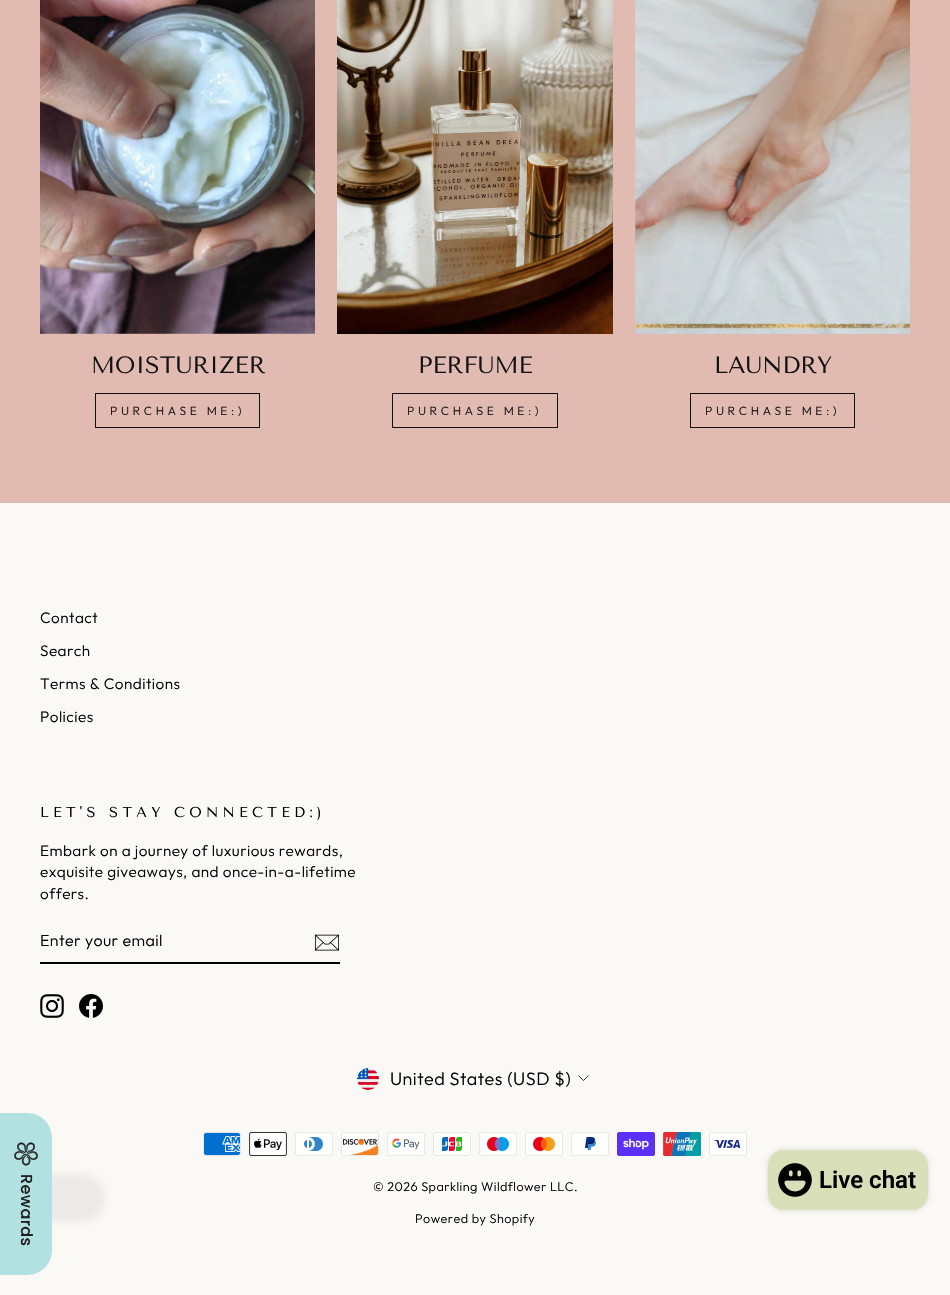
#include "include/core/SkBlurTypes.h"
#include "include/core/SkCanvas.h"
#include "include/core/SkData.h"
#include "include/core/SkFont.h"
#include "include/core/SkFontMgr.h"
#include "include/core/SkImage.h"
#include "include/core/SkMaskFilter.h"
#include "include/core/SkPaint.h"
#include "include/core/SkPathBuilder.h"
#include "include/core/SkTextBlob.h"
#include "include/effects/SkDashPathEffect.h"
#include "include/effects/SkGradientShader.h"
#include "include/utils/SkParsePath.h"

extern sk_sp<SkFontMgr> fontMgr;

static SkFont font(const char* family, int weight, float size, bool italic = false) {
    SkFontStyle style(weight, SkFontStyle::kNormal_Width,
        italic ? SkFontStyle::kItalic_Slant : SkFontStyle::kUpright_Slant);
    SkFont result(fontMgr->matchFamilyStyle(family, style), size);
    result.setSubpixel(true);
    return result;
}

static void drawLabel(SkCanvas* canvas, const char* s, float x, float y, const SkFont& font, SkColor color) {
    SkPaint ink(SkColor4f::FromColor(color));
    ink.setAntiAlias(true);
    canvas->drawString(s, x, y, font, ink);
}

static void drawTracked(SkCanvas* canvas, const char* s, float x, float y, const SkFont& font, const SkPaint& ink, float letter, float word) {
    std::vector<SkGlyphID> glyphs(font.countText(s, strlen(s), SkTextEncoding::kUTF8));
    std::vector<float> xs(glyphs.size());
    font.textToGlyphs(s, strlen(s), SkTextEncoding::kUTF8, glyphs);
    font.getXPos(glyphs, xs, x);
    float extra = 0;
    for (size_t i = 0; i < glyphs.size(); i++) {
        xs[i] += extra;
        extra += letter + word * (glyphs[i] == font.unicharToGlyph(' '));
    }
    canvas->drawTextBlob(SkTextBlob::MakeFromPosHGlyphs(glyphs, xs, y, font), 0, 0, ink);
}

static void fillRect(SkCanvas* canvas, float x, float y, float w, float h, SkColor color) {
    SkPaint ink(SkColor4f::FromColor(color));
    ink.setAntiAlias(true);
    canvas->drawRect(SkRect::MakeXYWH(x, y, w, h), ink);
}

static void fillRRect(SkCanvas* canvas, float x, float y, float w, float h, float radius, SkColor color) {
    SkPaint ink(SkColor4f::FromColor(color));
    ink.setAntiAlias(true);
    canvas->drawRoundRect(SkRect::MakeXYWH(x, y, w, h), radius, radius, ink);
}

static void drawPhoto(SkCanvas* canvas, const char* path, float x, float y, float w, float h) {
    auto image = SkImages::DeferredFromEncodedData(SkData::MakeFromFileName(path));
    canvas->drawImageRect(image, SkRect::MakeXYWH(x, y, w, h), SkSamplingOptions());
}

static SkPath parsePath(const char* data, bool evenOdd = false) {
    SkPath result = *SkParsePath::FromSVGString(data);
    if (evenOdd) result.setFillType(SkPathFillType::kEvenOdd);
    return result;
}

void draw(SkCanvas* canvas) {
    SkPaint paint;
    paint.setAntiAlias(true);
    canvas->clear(0xFFE1BAB2);
    fillRect(canvas, 0, 503, 950, 792, 0xFFFAF9F6);
    paint.setColor(0x14444444);
    paint.setMaskFilter(SkMaskFilter::MakeBlur(kNormal_SkBlurStyle, 4));
    canvas->drawRoundRect(SkRect::MakeXYWH(-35, 1174, 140, 48), 23, 23, paint);
    paint.setMaskFilter(nullptr);
    paint.setColor(0xFFB2E1E1);
    canvas->drawPath(parsePath("M52 1138V1250C52 1264 41 1275 27 1275H0V1113H27C41 1113 52 1124 52 1138Z"), paint);
    drawPhoto(canvas, "assets/img1.png", 14, 1142, 24, 24);
    SkFont font1 = font("Poppins", 500, 16);
    paint.setColor(0xFF1F1E1E);
    canvas->save();
    canvas->rotate(90, 21, 1174);
    drawTracked(canvas, "Rewards", 21, 1174, font1, paint, 0.4f, 0);
    canvas->restore();
    drawPhoto(canvas, "assets/img2.png", 40, 0, 275, 334);
    SkFont font2 = font("Tenor Sans", 400, 23.5f);
    drawLabel(canvas, "MOISTURIZER", 91, 373, font2, 0xFF111111);
    paint.setStroke(true);
    paint.setStrokeWidth(1);
    paint.setColor(0xFF111111);
    canvas->drawRect(SkRect::MakeXYWH(95.5f, 393.5f, 164, 34), paint);
    SkFont font3 = font("Outfit", 300, 12);
    paint.setStroke(false);
    drawTracked(canvas, "PURCHASE ME:)", 110, 415, font3, paint, 3.6f, 0);
    drawPhoto(canvas, "assets/img3.png", 337, 0, 276, 334);
    drawLabel(canvas, "PERFUME", 418, 373, font2, 0xFF111111);
    paint.setStroke(true);
    canvas->drawRect(SkRect::MakeXYWH(392.5f, 393.5f, 165, 34), paint);
    paint.setStroke(false);
    drawTracked(canvas, "PURCHASE ME:)", 407, 415, font3, paint, 3.6f, 0);
    drawPhoto(canvas, "assets/img4.png", 635, 0, 275, 334);
    drawLabel(canvas, "LAUNDRY", 714, 373, font2, 0xFF111111);
    paint.setStroke(true);
    canvas->drawRect(SkRect::MakeXYWH(690.5f, 393.5f, 164, 34), paint);
    paint.setStroke(false);
    drawTracked(canvas, "PURCHASE ME:)", 705, 415, font3, paint, 3.6f, 0);
    SkFont font4 = font("Outfit", 300, 15.3f);
    paint.setColor(0xFF000000);
    drawTracked(canvas, "Contact", 40, 623, font4, paint, 0.45f, 0);
    drawTracked(canvas, "Search", 40, 656, font4, paint, 0.45f, 0);
    drawTracked(canvas, "Terms & Conditions", 40, 689, font4, paint, 0.45f, 0);
    drawTracked(canvas, "Policies", 40, 722, font4, paint, 0.45f, 0);
    SkFont font5 = font("Tenor Sans", 400, 14.4f);
    drawTracked(canvas, "LET'S STAY CONNECTED:)", 40, 817, font5, paint, 4.3f, 0);
    drawTracked(canvas, "Embark on a journey of luxurious rewards,", 40, 856, font4, paint, 0.45f, 0);
    drawTracked(canvas, "exquisite giveaways, and once-in-a-lifetime", 40, 877, font4, paint, 0.45f, 0);
    drawTracked(canvas, "offers.", 40, 899, font4, paint, 0.45f, 0);
    fillRect(canvas, 40, 962, 300, 2, 0xFF000000);
    SkFont font6 = font("Outfit", 300, 16);
    drawTracked(canvas, "Enter your email", 40, 946, font6, paint, 0.4f, 0);
    drawPhoto(canvas, "assets/img5.png", 314, 934, 26, 17);
    drawPhoto(canvas, "assets/img6.png", 40, 994, 24, 24);
    drawPhoto(canvas, "assets/img7.png", 79, 994, 24, 24);
    drawPhoto(canvas, "assets/img8.png", 357, 1068, 22, 22);
    SkFont font7 = font("Outfit", 300, 18);
    drawTracked(canvas, "United States (USD $)", 390, 1085, font7, paint, 0.45f, 0);
    paint.setStroke(true);
    paint.setStrokeWidth(0.8f);
    canvas->drawPath(parsePath("M578.5 1075.5L583.5 1080.5L588.5 1075.5"), paint);
    drawPhoto(canvas, "assets/img9.png", 203, 1132, 38, 24);
    drawPhoto(canvas, "assets/img10.png", 249, 1132, 38, 24);
    drawPhoto(canvas, "assets/img11.png", 295, 1132, 38, 24);
    drawPhoto(canvas, "assets/img12.png", 341, 1132, 38, 24);
    drawPhoto(canvas, "assets/img13.png", 387, 1132, 38, 24);
    drawPhoto(canvas, "assets/img14.png", 433, 1132, 38, 24);
    drawPhoto(canvas, "assets/img15.png", 479, 1132, 38, 24);
    drawPhoto(canvas, "assets/img16.png", 525, 1132, 38, 24);
    drawPhoto(canvas, "assets/img17.png", 571, 1132, 38, 24);
    drawPhoto(canvas, "assets/img18.png", 617, 1132, 38, 24);
    drawPhoto(canvas, "assets/img19.png", 663, 1132, 38, 24);
    drawPhoto(canvas, "assets/img20.png", 709, 1132, 38, 24);
    SkFont font8 = font("Outfit", 300, 12.6f);
    paint.setStroke(false);
    drawTracked(canvas, "© 2026 Sparkling Wildflower LLC.", 373, 1191, font8, paint, 0.45f, 0);
    drawTracked(canvas, "Powered by Shopify", 415, 1223, font8, paint, 0.45f, 0);
    paint.setColor(0x26000000);
    paint.setMaskFilter(SkMaskFilter::MakeBlur(kNormal_SkBlurStyle, 2.5f));
    canvas->drawRoundRect(SkRect::MakeXYWH(768, 1150, 160, 60), 16, 16, paint);
    paint.setMaskFilter(nullptr);
    fillRRect(canvas, 768, 1150, 160, 60, 16, 0xFFD9DFB9);
    drawPhoto(canvas, "assets/img21.png", 778, 1163, 34, 34);
    SkFont font9 = font("Roboto", 600, 24);
    drawLabel(canvas, "Live chat", 819, 1188, font9, 0xFF000000);
}
